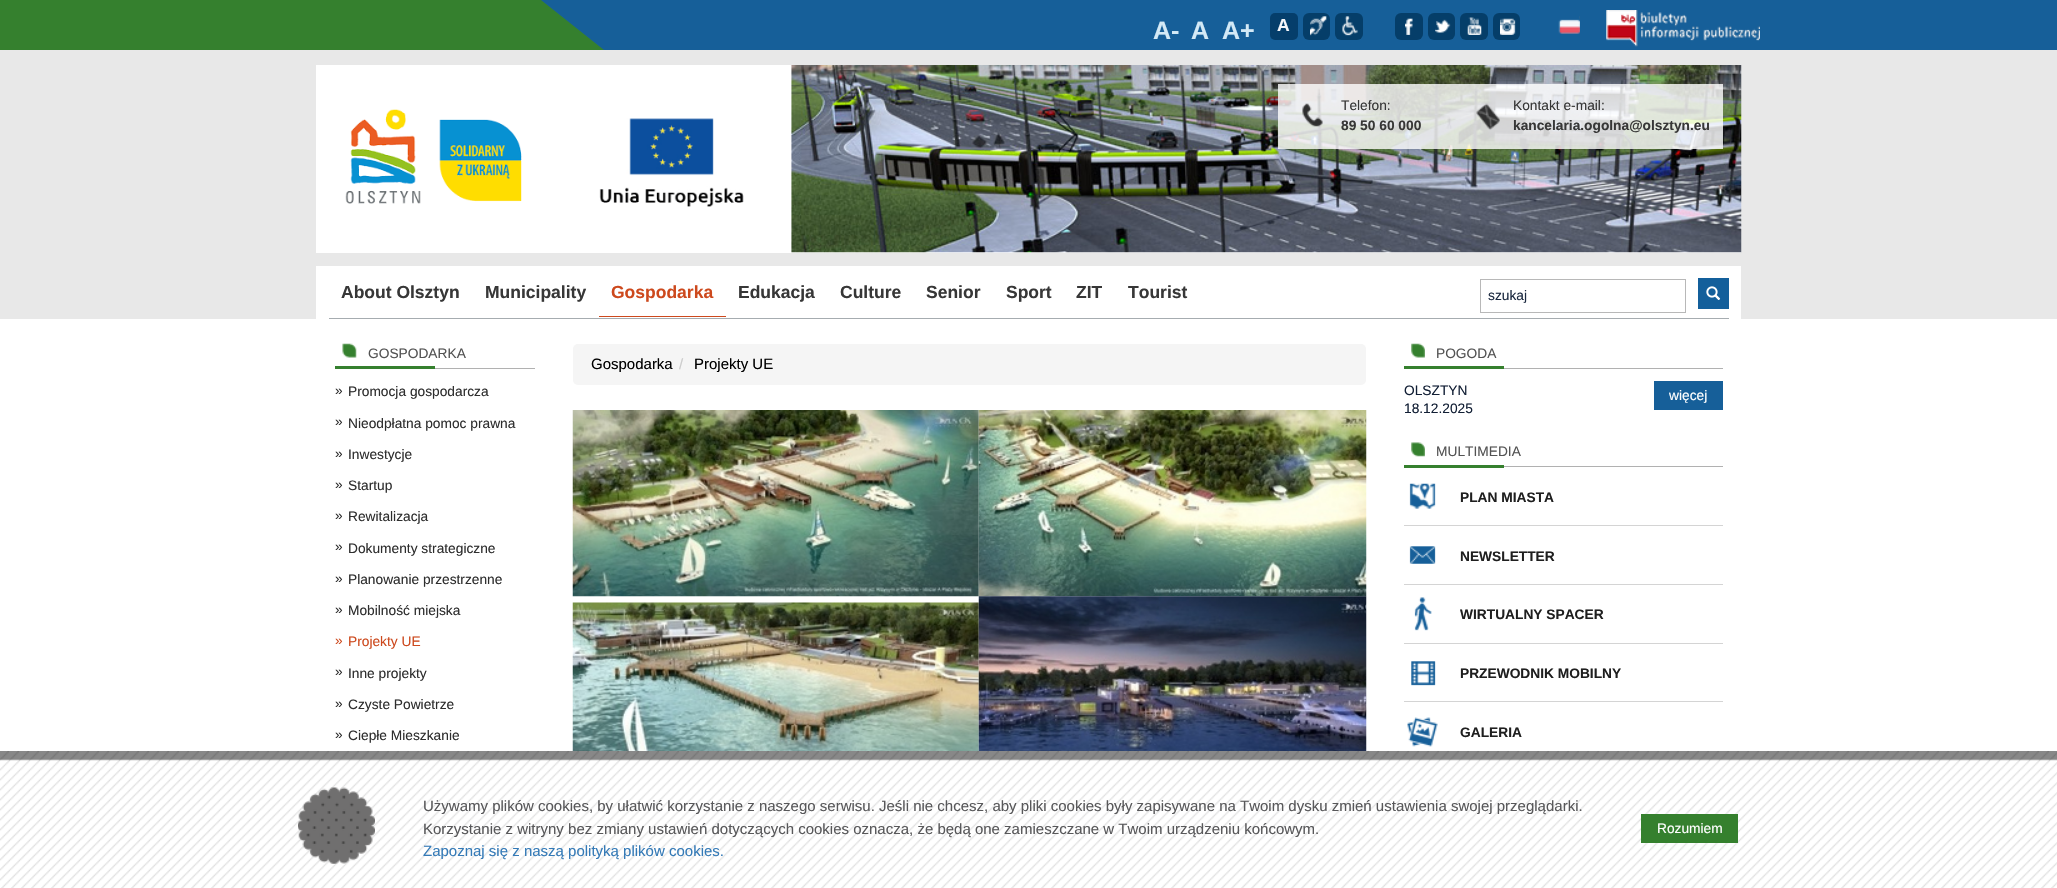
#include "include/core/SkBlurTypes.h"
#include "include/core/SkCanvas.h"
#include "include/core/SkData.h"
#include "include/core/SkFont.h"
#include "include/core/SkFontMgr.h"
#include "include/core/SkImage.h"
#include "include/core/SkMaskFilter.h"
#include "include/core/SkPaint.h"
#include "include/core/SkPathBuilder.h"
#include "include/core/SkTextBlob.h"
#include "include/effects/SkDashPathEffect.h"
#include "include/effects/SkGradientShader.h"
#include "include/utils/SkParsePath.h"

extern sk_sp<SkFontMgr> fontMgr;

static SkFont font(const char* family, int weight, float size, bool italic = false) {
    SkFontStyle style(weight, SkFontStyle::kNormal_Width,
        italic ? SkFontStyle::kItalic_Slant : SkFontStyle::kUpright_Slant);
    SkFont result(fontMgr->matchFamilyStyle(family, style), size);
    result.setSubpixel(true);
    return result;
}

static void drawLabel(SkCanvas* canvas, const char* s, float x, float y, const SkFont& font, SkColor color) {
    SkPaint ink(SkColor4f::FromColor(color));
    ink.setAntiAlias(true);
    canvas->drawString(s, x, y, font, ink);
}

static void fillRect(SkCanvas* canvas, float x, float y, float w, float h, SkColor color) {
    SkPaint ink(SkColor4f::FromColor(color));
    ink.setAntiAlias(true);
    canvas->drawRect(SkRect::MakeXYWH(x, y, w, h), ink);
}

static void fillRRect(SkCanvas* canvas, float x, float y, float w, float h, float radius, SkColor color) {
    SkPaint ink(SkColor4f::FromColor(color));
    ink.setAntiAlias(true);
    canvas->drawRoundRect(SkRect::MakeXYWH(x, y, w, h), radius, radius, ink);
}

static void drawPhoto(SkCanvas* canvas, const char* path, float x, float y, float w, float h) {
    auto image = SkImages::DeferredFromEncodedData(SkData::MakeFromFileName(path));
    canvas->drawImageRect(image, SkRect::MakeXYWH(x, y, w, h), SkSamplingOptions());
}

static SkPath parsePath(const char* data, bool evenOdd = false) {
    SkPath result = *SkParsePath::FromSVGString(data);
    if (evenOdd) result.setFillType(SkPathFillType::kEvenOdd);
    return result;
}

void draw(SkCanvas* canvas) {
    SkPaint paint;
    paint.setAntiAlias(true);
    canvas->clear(0xFFFFFFFF);
    fillRect(canvas, 0, 0, 541, 50, 0xFF35802E);
    fillRect(canvas, 541, 0, 1516, 50, 0xFF165F99);
    paint.setColor(0xFF35802E);
    canvas->drawPath(parsePath("M604 50H541V0Z"), paint);
    SkFont font1 = font("Liberation Sans", 700, 25);
    drawLabel(canvas, "A-", 1153, 39, font1, 0xFFD3E9F6);
    drawLabel(canvas, "A", 1191, 39, font1, 0xFFD3E9F6);
    drawLabel(canvas, "A+", 1222, 39, font1, 0xFFD3E9F6);
    fillRRect(canvas, 1270, 13, 28, 27, 5, 0xFF053E6B);
    SkFont font2 = font("Liberation Sans", 700, 17.5f);
    drawLabel(canvas, "A", 1277, 31, font2, 0xFFF5F6FA);
    fillRRect(canvas, 1303, 13, 27, 27, 6, 0xFF053E69);
    drawPhoto(canvas, "assets/img1.png", 1310, 16, 17, 20);
    fillRRect(canvas, 1335, 13, 28, 27, 6, 0xFF053E69);
    drawPhoto(canvas, "assets/img2.png", 1342, 16, 16, 20);
    fillRRect(canvas, 1395, 13, 28, 27, 6, 0xFF053E69);
    drawPhoto(canvas, "assets/img3.png", 1405, 18, 8, 17);
    fillRRect(canvas, 1428, 13, 27, 27, 6, 0xFF053E69);
    drawPhoto(canvas, "assets/img4.png", 1435, 19, 16, 14);
    fillRRect(canvas, 1460, 13, 28, 27, 6, 0xFF053E69);
    drawPhoto(canvas, "assets/img5.png", 1467, 17, 15, 18);
    fillRRect(canvas, 1493, 13, 27, 27, 6, 0xFF053E69);
    drawPhoto(canvas, "assets/img6.png", 1500, 18, 16, 17);
    drawPhoto(canvas, "assets/img7.png", 1558, 16, 22, 18);
    drawPhoto(canvas, "assets/img8.png", 1606, 10, 154, 37);
    fillRect(canvas, 0, 50, 2057, 269, 0xFFE8E8E8);
    fillRect(canvas, 316, 65, 1425, 188, 0xFFFFFFFF);
    drawPhoto(canvas, "assets/img9.png", 345, 109, 177, 95);
    drawPhoto(canvas, "assets/img10.png", 599, 118, 145, 89);
    drawPhoto(canvas, "assets/img11.png", 791, 65, 951, 188);
    fillRect(canvas, 1278, 84, 445, 65, 0xCCFFFFFF);
    drawPhoto(canvas, "assets/img12.png", 1302, 103, 21, 24);
    SkFont font3 = font("Liberation Sans", 400, 13.75f);
    drawLabel(canvas, "Telefon:", 1341, 110, font3, 0xFF373737);
    SkFont font4 = font("Liberation Sans", 700, 13.75f);
    drawLabel(canvas, "89 50 60 000", 1341, 130, font4, 0xFF373737);
    drawPhoto(canvas, "assets/img13.png", 1476, 103, 24, 27);
    drawLabel(canvas, "Kontakt e-mail:", 1513, 110, font3, 0xFF373737);
    drawLabel(canvas, "kancelaria.ogolna@olsztyn.eu", 1513, 130, font4, 0xFF373737);
    fillRect(canvas, 316, 266, 1425, 53, 0xFFFFFFFF);
    fillRect(canvas, 329, 318, 1400, 1, 0xFFA6ACB0);
    drawLabel(canvas, "About Olsztyn", 341, 298, font2, 0xFF373737);
    drawLabel(canvas, "Municipality", 485, 298, font2, 0xFF373737);
    fillRect(canvas, 599, 316, 127, 1, 0xFFCD491D);
    drawLabel(canvas, "Gospodarka", 611, 298, font2, 0xFFCD491D);
    drawLabel(canvas, "Edukacja", 738, 298, font2, 0xFF373737);
    drawLabel(canvas, "Culture", 840, 298, font2, 0xFF373737);
    drawLabel(canvas, "Senior", 926, 298, font2, 0xFF373737);
    drawLabel(canvas, "Sport", 1006, 298, font2, 0xFF373737);
    drawLabel(canvas, "ZIT", 1076, 298, font2, 0xFF373737);
    drawLabel(canvas, "Tourist", 1128, 298, font2, 0xFF373737);
    paint.setStroke(true);
    paint.setStrokeWidth(1);
    paint.setColor(0xFFB8B8B8);
    canvas->drawRect(SkRect::MakeXYWH(1480.5f, 279.5f, 205, 33), paint);
    drawLabel(canvas, "szukaj", 1488, 300, font3, 0xFF1B2940);
    fillRect(canvas, 1698, 278, 31, 31, 0xFF135F9B);
    drawPhoto(canvas, "assets/img14.png", 1706, 286, 15, 14);
    drawPhoto(canvas, "assets/img15.png", 342, 343, 15, 15);
    fillRect(canvas, 435, 368, 100, 1, 0xFFB1B1B1);
    drawLabel(canvas, "GOSPODARKA", 368, 358, font3, 0xFF535353);
    fillRect(canvas, 335, 366, 100, 3, 0xFF35802E);
    drawLabel(canvas, "»", 335, 395, font3, 0xFF2E2E2E);
    drawLabel(canvas, "Promocja gospodarcza", 348, 396, font3, 0xFF2E2E2E);
    drawLabel(canvas, "»", 335, 426, font3, 0xFF2E2E2E);
    drawLabel(canvas, "Nieodpłatna pomoc prawna", 348, 428, font3, 0xFF2E2E2E);
    drawLabel(canvas, "»", 335, 458, font3, 0xFF2E2E2E);
    drawLabel(canvas, "Inwestycje", 348, 459, font3, 0xFF2E2E2E);
    drawLabel(canvas, "»", 335, 489, font3, 0xFF2E2E2E);
    drawLabel(canvas, "Startup", 348, 490, font3, 0xFF2E2E2E);
    drawLabel(canvas, "»", 335, 520, font3, 0xFF2E2E2E);
    drawLabel(canvas, "Rewitalizacja", 348, 521, font3, 0xFF2E2E2E);
    drawLabel(canvas, "»", 335, 551, font3, 0xFF2E2E2E);
    drawLabel(canvas, "Dokumenty strategiczne", 348, 553, font3, 0xFF2E2E2E);
    drawLabel(canvas, "»", 335, 583, font3, 0xFF2E2E2E);
    drawLabel(canvas, "Planowanie przestrzenne", 348, 584, font3, 0xFF2E2E2E);
    drawLabel(canvas, "»", 335, 614, font3, 0xFF2E2E2E);
    drawLabel(canvas, "Mobilność miejska", 348, 615, font3, 0xFF2E2E2E);
    drawLabel(canvas, "»", 335, 645, font3, 0xFFCD491D);
    drawLabel(canvas, "Projekty UE", 348, 646, font3, 0xFFCD491D);
    drawLabel(canvas, "»", 335, 676, font3, 0xFF2E2E2E);
    drawLabel(canvas, "Inne projekty", 348, 678, font3, 0xFF2E2E2E);
    drawLabel(canvas, "»", 335, 708, font3, 0xFF2E2E2E);
    drawLabel(canvas, "Czyste Powietrze", 348, 709, font3, 0xFF2E2E2E);
    drawLabel(canvas, "»", 335, 739, font3, 0xFF2E2E2E);
    drawLabel(canvas, "Ciepłe Mieszkanie", 348, 740, font3, 0xFF2E2E2E);
    fillRRect(canvas, 573, 344, 793, 41, 5, 0xFFF5F5F5);
    SkFont font5 = font("Liberation Sans", 400, 15);
    drawLabel(canvas, "Gospodarka", 591, 369, font5, 0xFF000000);
    drawLabel(canvas, "/", 679, 369, font5, 0xFFCCCCCC);
    drawLabel(canvas, "Projekty UE", 694, 369, font5, 0xFF000000);
    drawPhoto(canvas, "assets/img16.png", 572, 410, 407, 187);
    drawPhoto(canvas, "assets/img17.png", 978, 410, 389, 187);
    drawPhoto(canvas, "assets/img18.png", 572, 602, 407, 149);
    drawPhoto(canvas, "assets/img19.png", 978, 596, 389, 155);
    drawPhoto(canvas, "assets/img20.png", 1411, 343, 14, 15);
    fillRect(canvas, 1504, 368, 219, 1, 0xFFB1B1B1);
    drawLabel(canvas, "POGODA", 1436, 358, font3, 0xFF535353);
    fillRect(canvas, 1404, 366, 100, 3, 0xFF35802E);
    drawLabel(canvas, "OLSZTYN", 1404, 395, font3, 0xFF121F35);
    drawLabel(canvas, "18.12.2025", 1404, 413, font3, 0xFF121F35);
    fillRect(canvas, 1654, 381, 69, 29, 0xFF165F99);
    drawLabel(canvas, "więcej", 1669, 400, font3, 0xFFFFFFFF);
    drawPhoto(canvas, "assets/img21.png", 1411, 442, 14, 15);
    fillRect(canvas, 1504, 466, 219, 1, 0xFFB1B1B1);
    drawLabel(canvas, "MULTIMEDIA", 1436, 456, font3, 0xFF535353);
    fillRect(canvas, 1404, 465, 100, 3, 0xFF35802E);
    fillRect(canvas, 1404, 525, 319, 1, 0xFFD4D4D4);
    drawPhoto(canvas, "assets/img22.png", 1409, 483, 27, 26);
    drawLabel(canvas, "PLAN MIASTA", 1460, 502, font4, 0xFF1F1F1F);
    fillRect(canvas, 1404, 584, 319, 1, 0xFFD4D4D4);
    drawPhoto(canvas, "assets/img23.png", 1409, 546, 27, 18);
    drawLabel(canvas, "NEWSLETTER", 1460, 561, font4, 0xFF1F1F1F);
    fillRect(canvas, 1404, 643, 319, 1, 0xFFD4D4D4);
    drawPhoto(canvas, "assets/img24.png", 1414, 597, 18, 34);
    drawLabel(canvas, "WIRTUALNY SPACER", 1460, 619, font4, 0xFF1F1F1F);
    fillRect(canvas, 1404, 701, 319, 1, 0xFFD4D4D4);
    drawPhoto(canvas, "assets/img25.png", 1411, 661, 25, 25);
    drawLabel(canvas, "PRZEWODNIK MOBILNY", 1460, 678, font4, 0xFF1F1F1F);
    drawPhoto(canvas, "assets/img26.png", 1407, 717, 31, 30);
    drawLabel(canvas, "GALERIA", 1460, 737, font4, 0xFF1F1F1F);
    drawPhoto(canvas, "assets/img27.png", 0, 751, 2057, 137);
    drawPhoto(canvas, "assets/img28.png", 298, 787, 77, 77);
    drawLabel(canvas, "Używamy plików cookies, by ułatwić korzystanie z naszego serwisu. Jeśli nie chcesz, aby pliki cookies były zapisywane na Twoim dysku zmień ustawienia swojej przeglądarki.", 423, 811, font5, 0xFF58585A);
    drawLabel(canvas, "Korzystanie z witryny bez zmiany ustawień dotyczących cookies oznacza, że będą one zamieszczane w Twoim urządzeniu końcowym.", 423, 834, font5, 0xFF58585A);
    fillRect(canvas, 1641, 814, 97, 29, 0xFF35802E);
    drawLabel(canvas, "Rozumiem", 1657, 833, font3, 0xFFFFFFFF);
    drawLabel(canvas, "Zapoznaj się z naszą polityką plików cookies.", 423, 856, font5, 0xFF347AB7);
}
